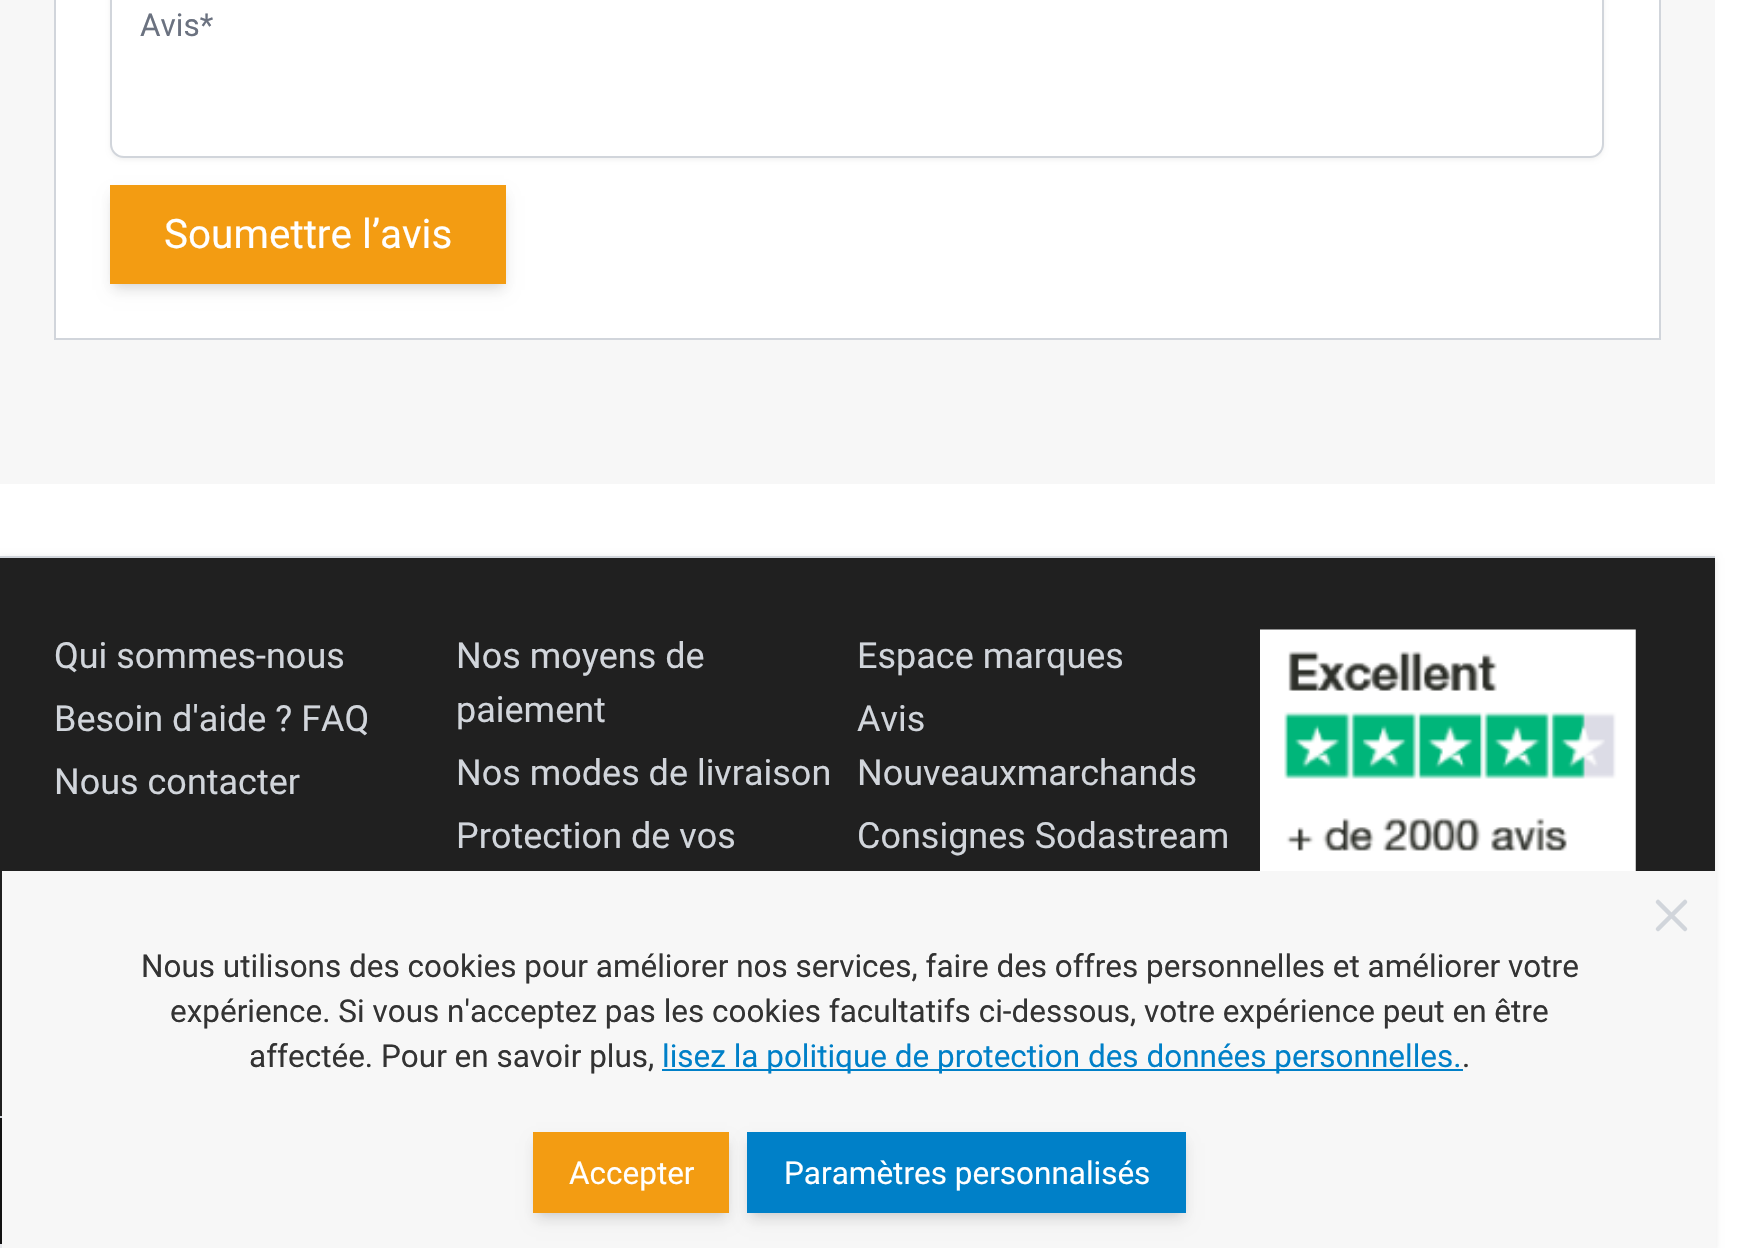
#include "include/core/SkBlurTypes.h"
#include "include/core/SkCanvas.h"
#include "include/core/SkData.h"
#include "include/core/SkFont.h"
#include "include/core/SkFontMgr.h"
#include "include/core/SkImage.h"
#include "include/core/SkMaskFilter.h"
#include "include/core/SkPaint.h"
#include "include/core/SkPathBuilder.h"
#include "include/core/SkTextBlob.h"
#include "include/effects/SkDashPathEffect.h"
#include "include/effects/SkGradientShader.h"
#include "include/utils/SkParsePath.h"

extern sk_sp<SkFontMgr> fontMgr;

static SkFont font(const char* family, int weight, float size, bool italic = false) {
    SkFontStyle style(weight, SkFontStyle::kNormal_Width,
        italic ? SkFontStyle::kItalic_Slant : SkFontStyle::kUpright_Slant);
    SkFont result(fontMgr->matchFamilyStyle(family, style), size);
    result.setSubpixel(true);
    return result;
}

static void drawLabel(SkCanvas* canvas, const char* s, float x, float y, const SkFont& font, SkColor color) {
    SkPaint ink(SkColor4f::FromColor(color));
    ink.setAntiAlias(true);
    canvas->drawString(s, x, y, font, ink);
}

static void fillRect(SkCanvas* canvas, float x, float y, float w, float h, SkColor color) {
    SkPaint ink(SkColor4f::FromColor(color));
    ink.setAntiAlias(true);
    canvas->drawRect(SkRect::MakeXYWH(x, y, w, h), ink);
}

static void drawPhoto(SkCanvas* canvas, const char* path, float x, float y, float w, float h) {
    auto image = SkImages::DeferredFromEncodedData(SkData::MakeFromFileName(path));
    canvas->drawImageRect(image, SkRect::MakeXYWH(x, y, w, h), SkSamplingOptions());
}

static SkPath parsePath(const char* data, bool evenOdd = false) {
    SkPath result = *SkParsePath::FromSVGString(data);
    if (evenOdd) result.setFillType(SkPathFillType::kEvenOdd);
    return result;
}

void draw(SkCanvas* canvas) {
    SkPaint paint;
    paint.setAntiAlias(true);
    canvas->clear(0xFFFFFFFF);
    fillRect(canvas, 0, 0, 1715, 484, 0xFFF7F7F7);
    paint.setColor(0xFFFFFFFF);
    canvas->drawRect(SkRect::MakeXYWH(55, -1, 1605, 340), paint);
    paint.setStroke(true);
    paint.setStrokeWidth(2);
    paint.setColor(0xFFD1D5DB);
    canvas->drawRect(SkRect::MakeXYWH(55, -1, 1605, 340), paint);
    paint.setStroke(false);
    paint.setColor(0x0D000000);
    paint.setMaskFilter(SkMaskFilter::MakeBlur(kNormal_SkBlurStyle, 2));
    canvas->drawRoundRect(SkRect::MakeXYWH(110, -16, 1494, 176), 14, 14, paint);
    paint.setMaskFilter(nullptr);
    paint.setColor(0xFFFFFFFF);
    canvas->drawRoundRect(SkRect::MakeXYWH(111, -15, 1492, 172), 13, 13, paint);
    paint.setStroke(true);
    paint.setColor(0xFFD1D5DB);
    canvas->drawRoundRect(SkRect::MakeXYWH(111, -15, 1492, 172), 13, 13, paint);
    SkFont font1 = font("Roboto", 400, 31.5f);
    drawLabel(canvas, "Avis*", 140, 36, font1, 0xFF6B7280);
    paint.setStroke(false);
    paint.setColor(0x1A000000);
    paint.setMaskFilter(SkMaskFilter::MakeBlur(kNormal_SkBlurStyle, 4.5f));
    canvas->drawRect(SkRect::MakeXYWH(115, 194, 387, 90), paint);
    paint.setMaskFilter(nullptr);
    paint.setMaskFilter(SkMaskFilter::MakeBlur(kNormal_SkBlurStyle, 7));
    canvas->drawRect(SkRect::MakeXYWH(113, 196, 391, 94), paint);
    paint.setMaskFilter(nullptr);
    fillRect(canvas, 110, 185, 396, 99, 0xFFF39C12);
    SkFont font2 = font("Roboto", 400, 40.5f);
    drawLabel(canvas, "Soumettre l’avis", 164, 248, font2, 0xFFFFFFFF);
    paint.setMaskFilter(SkMaskFilter::MakeBlur(kNormal_SkBlurStyle, 3.5f));
    canvas->drawRect(SkRect::MakeXYWH(0, 558, 1715, 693), paint);
    paint.setMaskFilter(nullptr);
    fillRect(canvas, 0, 558, 1715, 558, 0xFF202020);
    fillRect(canvas, 0, 556, 1715, 2, 0xFFD1D5DB);
    SkFont font3 = font("Roboto", 400, 36);
    drawLabel(canvas, "Qui sommes-nous", 54, 668, font3, 0xFFD1D5DB);
    drawLabel(canvas, "Besoin d'aide ? FAQ", 54, 731, font3, 0xFFD1D5DB);
    drawLabel(canvas, "Nous contacter", 54, 794, font3, 0xFFD1D5DB);
    drawLabel(canvas, "Nos moyens de", 456, 668, font3, 0xFFD1D5DB);
    drawLabel(canvas, "paiement", 456, 722, font3, 0xFFD1D5DB);
    drawLabel(canvas, "Nos modes de livraison", 456, 785, font3, 0xFFD1D5DB);
    drawLabel(canvas, "Protection de vos", 456, 848, font3, 0xFFD1D5DB);
    drawLabel(canvas, "Espace marques", 857, 668, font3, 0xFFD1D5DB);
    drawLabel(canvas, "Avis", 857, 731, font3, 0xFFD1D5DB);
    drawLabel(canvas, "Nouveauxmarchands", 857, 785, font3, 0xFFD1D5DB);
    drawLabel(canvas, "Consignes Sodastream", 857, 848, font3, 0xFFD1D5DB);
    drawPhoto(canvas, "assets/img1.png", 1260, 629, 376, 242);
    fillRect(canvas, 0, 1118, 2, 126, 0xFF121212);
    fillRect(canvas, 0, 1116, 2, 2, 0xFFD1D5DB);
    fillRect(canvas, 0, 1244, 2, 4, 0xFFE5E7EB);
    fillRect(canvas, 2, 871, 1714, 377, 0xFFF7F7F7);
    paint.setStroke(true);
    paint.setStrokeWidth(4.5f);
    paint.setStrokeCap(SkPaint::kRound_Cap);
    paint.setStrokeJoin(SkPaint::kRound_Join);
    paint.setColor(0xFFD1D5DB);
    canvas->drawPath(parsePath("M1658 929L1685 902M1658 902L1685 929"), paint);
    drawLabel(canvas, "Nous utilisons des cookies pour améliorer nos services, faire des offres personnelles et améliorer votre", 141, 977, font1, 0xFF333333);
    drawLabel(canvas, "expérience. Si vous n'acceptez pas les cookies facultatifs ci-dessous, votre expérience peut en être", 170, 1022, font1, 0xFF333333);
    drawLabel(canvas, "affectée. Pour en savoir plus,", 249, 1067, font1, 0xFF333333);
    fillRect(canvas, 662, 1069, 801, 2, 0xFF0080C8);
    drawLabel(canvas, "lisez la politique de protection des données personnelles.", 662, 1067, font1, 0xFF0080C8);
    drawLabel(canvas, ".", 1462, 1067, font1, 0xFF333333);
    paint.setStroke(false);
    paint.setColor(0x1A000000);
    paint.setMaskFilter(SkMaskFilter::MakeBlur(kNormal_SkBlurStyle, 4.5f));
    canvas->drawRect(SkRect::MakeXYWH(538, 1141, 187, 72), paint);
    paint.setMaskFilter(nullptr);
    paint.setMaskFilter(SkMaskFilter::MakeBlur(kNormal_SkBlurStyle, 7));
    canvas->drawRect(SkRect::MakeXYWH(536, 1143, 191, 77), paint);
    paint.setMaskFilter(nullptr);
    fillRect(canvas, 533, 1132, 196, 81, 0xFFF39C12);
    drawLabel(canvas, "Accepter", 569, 1184, font1, 0xFFFFFFFF);
    paint.setMaskFilter(SkMaskFilter::MakeBlur(kNormal_SkBlurStyle, 4.5f));
    canvas->drawRect(SkRect::MakeXYWH(752, 1141, 429, 72), paint);
    paint.setMaskFilter(nullptr);
    paint.setMaskFilter(SkMaskFilter::MakeBlur(kNormal_SkBlurStyle, 7));
    canvas->drawRect(SkRect::MakeXYWH(749, 1143, 435, 77), paint);
    paint.setMaskFilter(nullptr);
    fillRect(canvas, 747, 1132, 439, 81, 0xFF0080C8);
    drawLabel(canvas, "Paramètres personnalisés", 784, 1184, font1, 0xFFFFFFFF);
}
